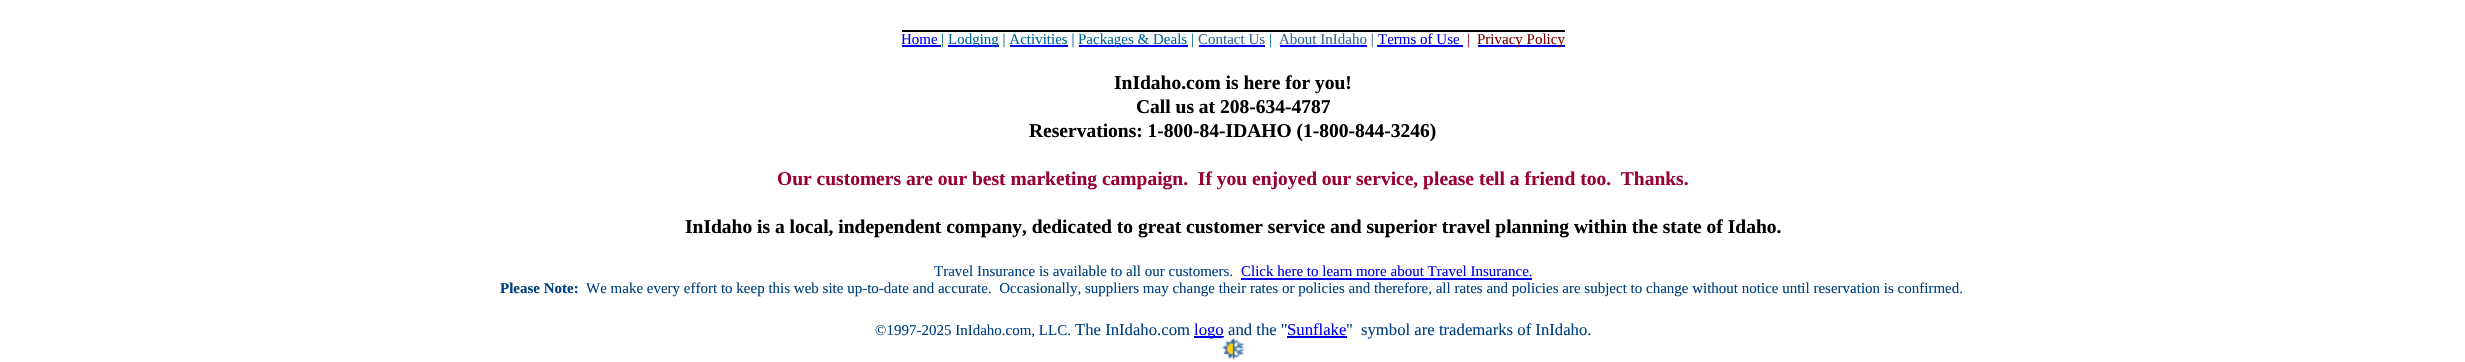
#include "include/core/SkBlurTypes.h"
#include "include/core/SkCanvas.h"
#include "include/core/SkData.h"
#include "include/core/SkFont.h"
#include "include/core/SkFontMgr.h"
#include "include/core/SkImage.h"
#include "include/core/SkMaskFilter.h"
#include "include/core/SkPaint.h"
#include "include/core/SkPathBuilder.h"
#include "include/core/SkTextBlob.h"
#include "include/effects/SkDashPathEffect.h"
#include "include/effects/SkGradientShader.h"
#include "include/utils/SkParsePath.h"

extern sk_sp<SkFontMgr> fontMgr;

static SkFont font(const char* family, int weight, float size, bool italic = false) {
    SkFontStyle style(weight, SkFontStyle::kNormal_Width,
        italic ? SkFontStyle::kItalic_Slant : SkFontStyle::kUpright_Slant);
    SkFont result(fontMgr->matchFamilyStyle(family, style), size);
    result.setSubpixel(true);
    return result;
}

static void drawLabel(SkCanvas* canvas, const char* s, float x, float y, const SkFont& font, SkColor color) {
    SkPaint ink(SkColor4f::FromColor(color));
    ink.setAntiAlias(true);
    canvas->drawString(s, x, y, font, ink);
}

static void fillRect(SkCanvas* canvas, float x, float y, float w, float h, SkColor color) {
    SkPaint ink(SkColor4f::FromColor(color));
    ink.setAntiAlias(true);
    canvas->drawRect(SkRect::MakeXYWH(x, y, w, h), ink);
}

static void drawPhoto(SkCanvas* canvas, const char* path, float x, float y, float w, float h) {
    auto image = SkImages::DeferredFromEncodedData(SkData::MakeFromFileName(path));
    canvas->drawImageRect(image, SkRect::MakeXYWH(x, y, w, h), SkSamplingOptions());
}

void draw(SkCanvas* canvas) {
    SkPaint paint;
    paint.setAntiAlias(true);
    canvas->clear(0xFFFFFFFF);
    SkFont font1 = font("Liberation Serif", 400, 15);
    drawLabel(canvas, "Home", 901, 44, font1, 0xFF0000EE);
    drawLabel(canvas, "|", 941, 44, font1, 0xFF006699);
    fillRect(canvas, 902, 45, 39, 2, 0xFF0000EE);
    fillRect(canvas, 948, 45, 51, 2, 0xFF0000EE);
    drawLabel(canvas, "Lodging | Activities |", 948, 44, font1, 0xFF006699);
    fillRect(canvas, 1010, 45, 58, 2, 0xFF0000EE);
    fillRect(canvas, 1079, 45, 109, 2, 0xFF0000EE);
    drawLabel(canvas, "Packages & Deals |", 1078, 44, font1, 0xFF006699);
    drawLabel(canvas, "Contact Us", 1198, 44, font1, 0xFF336699);
    fillRect(canvas, 1199, 45, 66, 2, 0xFF0000EE);
    drawLabel(canvas, "|", 1269, 44, font1, 0xFF006699);
    fillRect(canvas, 1280, 45, 87, 2, 0xFF0000EE);
    drawLabel(canvas, "About InIdaho |", 1279, 44, font1, 0xFF336699);
    drawLabel(canvas, "Terms of Use", 1378, 44, font1, 0xFF0000EE);
    fillRect(canvas, 902, 30, 663, 2, 0xFF000000);
    fillRect(canvas, 1377, 45, 86, 2, 0xFF0000EE);
    drawLabel(canvas, "|", 1467, 44, font1, 0xFF990033);
    fillRect(canvas, 1478, 45, 87, 2, 0xFF0000EE);
    drawLabel(canvas, "Privacy Policy", 1477, 44, font1, 0xFF800000);
    SkFont font2 = font("Liberation Serif", 700, 19.5f);
    drawLabel(canvas, "InIdaho.com is here for you!", 1114, 89, font2, 0xFF000000);
    drawLabel(canvas, "Call us at 208-634-4787", 1136, 113, font2, 0xFF000000);
    drawLabel(canvas, "Reservations: 1-800-84-IDAHO (1-800-844-3246)", 1029, 137, font2, 0xFF000000);
    drawLabel(canvas, "Our customers are our best marketing campaign.  If you enjoyed our service, please tell a friend too.  Thanks.", 777, 185, font2, 0xFF990033);
    drawLabel(canvas, "InIdaho is a local, independent company, dedicated to great customer service and superior travel planning within the state of Idaho.", 685, 233, font2, 0xFF000000);
    drawLabel(canvas, "Travel Insurance is available to all our customers.", 934, 276, font1, 0xFF004080);
    drawLabel(canvas, "Click here to learn more about Travel Insurance.", 1241, 276, font1, 0xFF0000EE);
    fillRect(canvas, 1241, 278, 291, 2, 0xFF0000EE);
    SkFont font3 = font("Liberation Serif", 700, 15);
    drawLabel(canvas, "Please Note:", 500, 293, font3, 0xFF004080);
    drawLabel(canvas, "We make every effort to keep this web site up-to-date and accurate.  Occasionally, suppliers may change their rates or policies and therefore, all rates and policies are subject to change without notice until reservation is confirmed.", 586, 293, font1, 0xFF004080);
    drawLabel(canvas, "©1997-2025 InIdaho.com, LLC.", 875, 335, font1, 0xFF004080);
    SkFont font4 = font("Liberation Serif", 400, 16.7f);
    drawLabel(canvas, "The InIdaho.com", 1075, 335, font4, 0xFF004080);
    fillRect(canvas, 1194, 336, 30, 2, 0xFF0000EE);
    drawLabel(canvas, "logo", 1194, 335, font4, 0xFF0000EE);
    drawLabel(canvas, "and the \"", 1228, 335, font4, 0xFF004080);
    fillRect(canvas, 1287, 336, 60, 2, 0xFF0000EE);
    drawLabel(canvas, "Sunflake", 1287, 335, font4, 0xFF0000EE);
    drawLabel(canvas, "\"", 1346, 335, font4, 0xFF004080);
    drawLabel(canvas, "symbol are trademarks of InIdaho.", 1361, 335, font4, 0xFF004080);
    drawPhoto(canvas, "assets/img1.png", 1222, 337, 22, 23);
}
